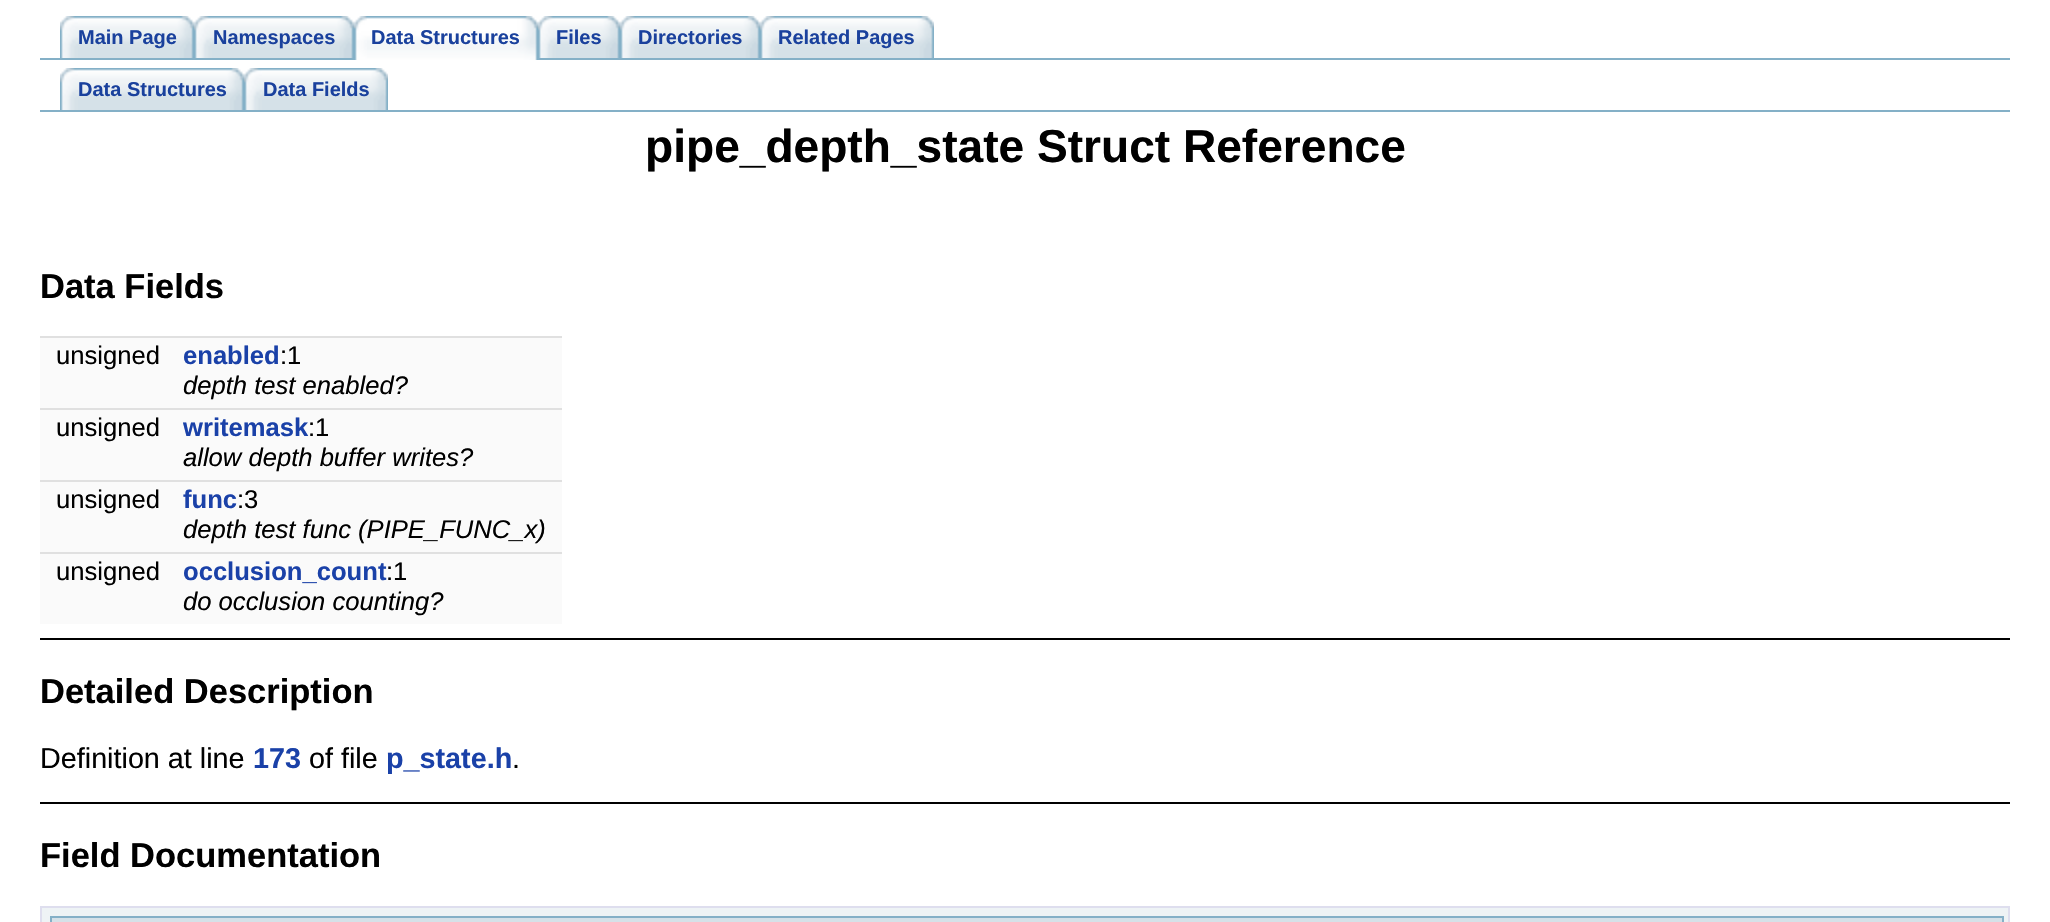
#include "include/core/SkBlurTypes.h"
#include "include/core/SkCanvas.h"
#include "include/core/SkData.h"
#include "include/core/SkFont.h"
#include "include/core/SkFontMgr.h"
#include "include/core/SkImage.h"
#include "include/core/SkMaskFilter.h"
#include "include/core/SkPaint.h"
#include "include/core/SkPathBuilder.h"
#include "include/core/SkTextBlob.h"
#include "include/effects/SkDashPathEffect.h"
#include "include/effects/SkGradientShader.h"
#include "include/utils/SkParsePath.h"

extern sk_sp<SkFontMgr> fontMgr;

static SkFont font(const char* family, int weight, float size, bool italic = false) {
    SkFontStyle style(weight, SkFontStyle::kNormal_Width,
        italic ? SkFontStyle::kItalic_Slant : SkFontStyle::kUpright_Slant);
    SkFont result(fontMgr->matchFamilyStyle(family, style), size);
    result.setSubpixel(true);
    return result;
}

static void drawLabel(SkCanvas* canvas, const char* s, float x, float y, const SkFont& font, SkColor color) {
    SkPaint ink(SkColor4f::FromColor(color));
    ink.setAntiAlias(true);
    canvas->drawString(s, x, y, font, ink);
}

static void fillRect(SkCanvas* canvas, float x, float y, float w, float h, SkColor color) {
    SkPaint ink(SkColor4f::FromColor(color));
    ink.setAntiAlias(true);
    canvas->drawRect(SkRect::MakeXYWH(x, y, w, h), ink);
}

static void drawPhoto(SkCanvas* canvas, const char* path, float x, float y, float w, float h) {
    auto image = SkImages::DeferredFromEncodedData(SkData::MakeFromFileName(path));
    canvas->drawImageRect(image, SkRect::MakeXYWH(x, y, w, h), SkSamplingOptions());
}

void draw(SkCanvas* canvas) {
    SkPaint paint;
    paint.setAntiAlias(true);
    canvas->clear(0xFFFFFFFF);
    fillRect(canvas, 40, 58, 1970, 2, 0xFF84B0C7);
    drawPhoto(canvas, "assets/img1.png", 78, 16, 116, 42);
    drawPhoto(canvas, "assets/img2.png", 60, 16, 18, 42);
    SkFont font1 = font("Liberation Sans", 700, 20);
    drawLabel(canvas, "Main Page", 78, 44, font1, 0xFF1A419D);
    drawPhoto(canvas, "assets/img3.png", 212, 16, 142, 42);
    drawPhoto(canvas, "assets/img2.png", 194, 16, 18, 42);
    drawLabel(canvas, "Namespaces", 213, 44, font1, 0xFF1A419D);
    drawPhoto(canvas, "assets/img4.png", 367, 16, 171, 44);
    drawPhoto(canvas, "assets/img5.png", 354, 16, 13, 44);
    drawLabel(canvas, "Data Structures", 371, 44, font1, 0xFF1A419D);
    drawPhoto(canvas, "assets/img6.png", 556, 16, 64, 42);
    drawPhoto(canvas, "assets/img2.png", 538, 16, 18, 42);
    drawLabel(canvas, "Files", 556, 44, font1, 0xFF1A419D);
    drawPhoto(canvas, "assets/img7.png", 638, 16, 122, 42);
    drawPhoto(canvas, "assets/img2.png", 620, 16, 18, 42);
    drawLabel(canvas, "Directories", 638, 44, font1, 0xFF1A419D);
    drawPhoto(canvas, "assets/img8.png", 778, 16, 156, 42);
    drawPhoto(canvas, "assets/img2.png", 760, 16, 18, 42);
    drawLabel(canvas, "Related Pages", 778, 44, font1, 0xFF1A419D);
    fillRect(canvas, 40, 110, 1970, 2, 0xFF84B0C7);
    drawPhoto(canvas, "assets/img9.png", 78, 68, 166, 42);
    drawPhoto(canvas, "assets/img2.png", 60, 68, 18, 42);
    drawLabel(canvas, "Data Structures", 78, 96, font1, 0xFF1A419D);
    drawPhoto(canvas, "assets/img10.png", 262, 68, 126, 42);
    drawPhoto(canvas, "assets/img2.png", 244, 68, 18, 42);
    drawLabel(canvas, "Data Fields", 263, 96, font1, 0xFF1A419D);
    SkFont font2 = font("Liberation Sans", 700, 46.1f);
    drawLabel(canvas, "pipe_depth_state Struct Reference", 645, 162, font2, 0xFF000000);
    SkFont font3 = font("Liberation Sans", 700, 34.5f);
    drawLabel(canvas, "Data Fields", 40, 298, font3, 0xFF000000);
    fillRect(canvas, 40, 338, 522, 32, 0xFFFAFAFA);
    fillRect(canvas, 40, 336, 522, 2, 0xFFE0E0E0);
    SkFont font4 = font("Liberation Sans", 400, 25.6f);
    drawLabel(canvas, "unsigned", 56, 364, font4, 0xFF000000);
    SkFont font5 = font("Liberation Sans", 700, 25.6f);
    drawLabel(canvas, "enabled", 183, 364, font5, 0xFF1A41A8);
    drawLabel(canvas, ":1", 280, 364, font4, 0xFF000000);
    fillRect(canvas, 40, 370, 522, 38, 0xFFFAFAFA);
    SkFont font6 = font("Liberation Sans", 400, 25.6f, true);
    drawLabel(canvas, "depth test enabled?", 183, 394, font6, 0xFF000000);
    fillRect(canvas, 40, 410, 522, 32, 0xFFFAFAFA);
    fillRect(canvas, 40, 408, 522, 2, 0xFFE0E0E0);
    drawLabel(canvas, "unsigned", 56, 436, font4, 0xFF000000);
    drawLabel(canvas, "writemask", 183, 436, font5, 0xFF1A41A8);
    drawLabel(canvas, ":1", 308, 436, font4, 0xFF000000);
    fillRect(canvas, 40, 442, 522, 38, 0xFFFAFAFA);
    drawLabel(canvas, "allow depth buffer writes?", 183, 466, font6, 0xFF000000);
    fillRect(canvas, 40, 482, 522, 32, 0xFFFAFAFA);
    fillRect(canvas, 40, 480, 522, 2, 0xFFE0E0E0);
    drawLabel(canvas, "unsigned", 56, 508, font4, 0xFF000000);
    drawLabel(canvas, "func", 183, 508, font5, 0xFF1A41A8);
    drawLabel(canvas, ":3", 237, 508, font4, 0xFF000000);
    fillRect(canvas, 40, 514, 522, 38, 0xFFFAFAFA);
    drawLabel(canvas, "depth test func (PIPE_FUNC_x)", 183, 538, font6, 0xFF000000);
    fillRect(canvas, 40, 554, 522, 32, 0xFFFAFAFA);
    fillRect(canvas, 40, 552, 522, 2, 0xFFE0E0E0);
    drawLabel(canvas, "unsigned", 56, 580, font4, 0xFF000000);
    drawLabel(canvas, "occlusion_count", 183, 580, font5, 0xFF1A41A8);
    drawLabel(canvas, ":1", 386, 580, font4, 0xFF000000);
    fillRect(canvas, 40, 586, 522, 38, 0xFFFAFAFA);
    drawLabel(canvas, "do occlusion counting?", 183, 610, font6, 0xFF000000);
    fillRect(canvas, 40, 638, 1970, 2, 0xFF000000);
    drawLabel(canvas, "Detailed Description", 40, 703, font3, 0xFF000000);
    SkFont font7 = font("Liberation Sans", 400, 28.75f);
    drawLabel(canvas, "Definition at line", 40, 768, font7, 0xFF000000);
    SkFont font8 = font("Liberation Sans", 700, 28.75f);
    drawLabel(canvas, "173", 253, 768, font8, 0xFF1A41A8);
    drawLabel(canvas, "of file", 309, 768, font7, 0xFF000000);
    drawLabel(canvas, "p_state.h", 386, 768, font8, 0xFF1A41A8);
    drawLabel(canvas, ".", 512, 768, font7, 0xFF000000);
    fillRect(canvas, 40, 802, 1970, 2, 0xFF000000);
    drawLabel(canvas, "Field Documentation", 40, 867, font3, 0xFF000000);
    paint.setColor(0xFFEEF3F5);
    canvas->drawRect(SkRect::MakeXYWH(41, 907, 1968, 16), paint);
    paint.setStroke(true);
    paint.setStrokeWidth(2);
    paint.setColor(0xFFDEDEEE);
    canvas->drawRect(SkRect::MakeXYWH(41, 907, 1968, 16), paint);
    paint.setStroke(false);
    paint.setColor(0xFFD5E1E8);
    canvas->drawRect(SkRect::MakeXYWH(51, 917, 1952, 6), paint);
    paint.setStroke(true);
    paint.setColor(0xFF84B0C7);
    canvas->drawRect(SkRect::MakeXYWH(51, 917, 1952, 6), paint);
}
